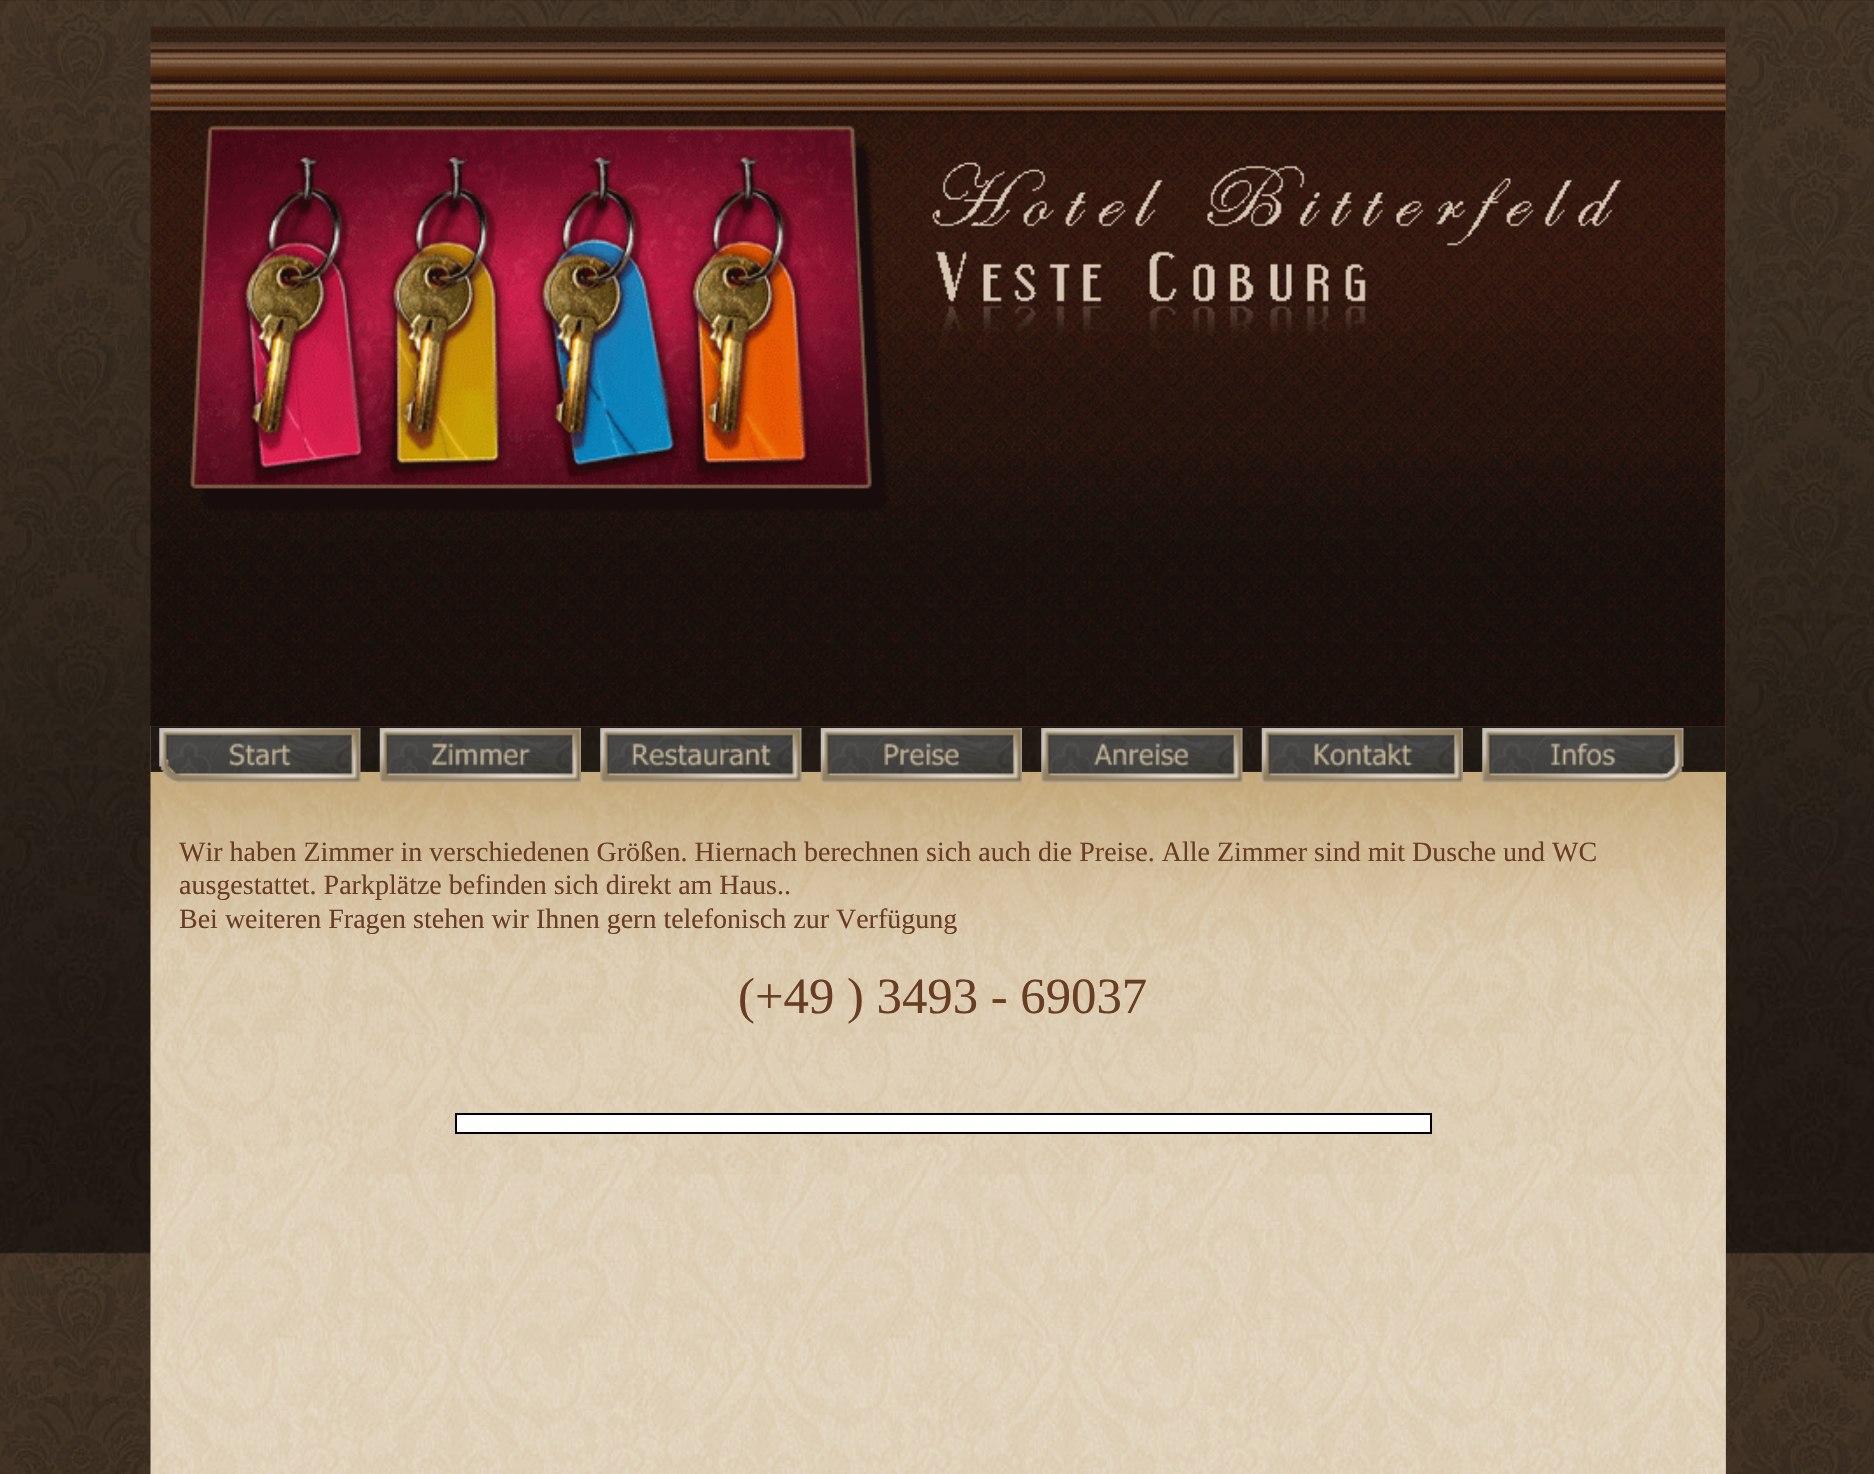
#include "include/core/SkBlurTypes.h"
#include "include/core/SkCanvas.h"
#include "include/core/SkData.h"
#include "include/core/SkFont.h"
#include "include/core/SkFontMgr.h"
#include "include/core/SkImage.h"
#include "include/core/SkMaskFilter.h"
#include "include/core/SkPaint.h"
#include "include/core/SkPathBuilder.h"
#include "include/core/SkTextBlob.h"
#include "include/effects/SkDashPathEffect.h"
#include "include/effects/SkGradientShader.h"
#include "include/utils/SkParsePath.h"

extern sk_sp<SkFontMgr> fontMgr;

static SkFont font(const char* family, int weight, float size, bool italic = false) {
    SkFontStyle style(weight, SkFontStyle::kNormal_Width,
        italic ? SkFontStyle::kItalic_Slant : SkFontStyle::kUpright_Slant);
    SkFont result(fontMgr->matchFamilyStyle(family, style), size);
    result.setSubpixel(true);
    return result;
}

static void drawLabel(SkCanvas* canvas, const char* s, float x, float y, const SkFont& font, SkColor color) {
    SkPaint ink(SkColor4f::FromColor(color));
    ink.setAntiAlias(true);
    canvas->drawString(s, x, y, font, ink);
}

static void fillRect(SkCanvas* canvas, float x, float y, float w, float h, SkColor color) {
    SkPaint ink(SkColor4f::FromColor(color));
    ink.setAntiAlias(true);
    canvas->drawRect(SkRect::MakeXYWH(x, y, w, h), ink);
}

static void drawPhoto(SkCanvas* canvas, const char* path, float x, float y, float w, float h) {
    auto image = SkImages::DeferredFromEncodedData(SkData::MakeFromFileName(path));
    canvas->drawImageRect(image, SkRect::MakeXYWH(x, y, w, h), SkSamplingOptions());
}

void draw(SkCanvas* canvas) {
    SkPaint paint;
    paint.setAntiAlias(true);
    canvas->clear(0xFFFFFFFF);
    drawPhoto(canvas, "assets/img1.png", 0, 0, 1874, 1474);
    fillRect(canvas, 151, 26, 1575, 700, 0xFF693C24);
    drawPhoto(canvas, "assets/img2.png", 150, 26, 1576, 701);
    fillRect(canvas, 1725, 772, 1, 702, 0xFFC7B18A);
    drawPhoto(canvas, "assets/img3.png", 150, 726, 1576, 748);
    fillRect(canvas, 151, 726, 1575, 46, 0xFF693C24);
    drawPhoto(canvas, "assets/img4.png", 150, 726, 1576, 46);
    drawPhoto(canvas, "assets/img5.png", 159, 728, 202, 55);
    drawPhoto(canvas, "assets/img6.png", 379, 728, 202, 55);
    drawPhoto(canvas, "assets/img7.png", 600, 728, 202, 55);
    drawPhoto(canvas, "assets/img8.png", 820, 728, 202, 55);
    drawPhoto(canvas, "assets/img9.png", 1041, 728, 202, 55);
    drawPhoto(canvas, "assets/img10.png", 1261, 728, 202, 55);
    drawPhoto(canvas, "assets/img11.png", 1482, 728, 202, 55);
    SkFont font1 = font("Liberation Serif", 400, 28);
    drawLabel(canvas, "Wir haben Zimmer in verschiedenen Größen. Hiernach berechnen sich auch die Preise. Alle Zimmer sind mit Dusche und WC", 179, 861, font1, 0xFF693C24);
    drawLabel(canvas, "ausgestattet. Parkplätze befinden sich direkt am Haus..", 179, 894, font1, 0xFF693C24);
    drawLabel(canvas, "Bei weiteren Fragen stehen wir Ihnen gern telefonisch zur Verfügung", 179, 928, font1, 0xFF693C24);
    SkFont font2 = font("Liberation Serif", 400, 50.75f);
    drawLabel(canvas, "(+49 ) 3493 - 69037", 738, 1013, font2, 0xFF693C24);
    paint.setColor(0xFFFFFFFF);
    canvas->drawRect(SkRect::MakeXYWH(456, 1114, 975, 19), paint);
    paint.setStroke(true);
    paint.setStrokeWidth(2);
    paint.setColor(0xFF000000);
    canvas->drawRect(SkRect::MakeXYWH(456, 1114, 975, 19), paint);
}
